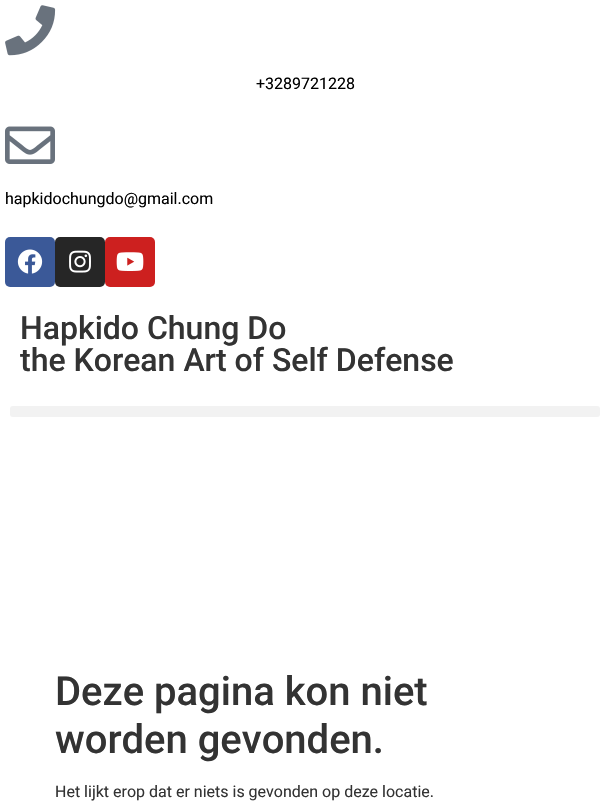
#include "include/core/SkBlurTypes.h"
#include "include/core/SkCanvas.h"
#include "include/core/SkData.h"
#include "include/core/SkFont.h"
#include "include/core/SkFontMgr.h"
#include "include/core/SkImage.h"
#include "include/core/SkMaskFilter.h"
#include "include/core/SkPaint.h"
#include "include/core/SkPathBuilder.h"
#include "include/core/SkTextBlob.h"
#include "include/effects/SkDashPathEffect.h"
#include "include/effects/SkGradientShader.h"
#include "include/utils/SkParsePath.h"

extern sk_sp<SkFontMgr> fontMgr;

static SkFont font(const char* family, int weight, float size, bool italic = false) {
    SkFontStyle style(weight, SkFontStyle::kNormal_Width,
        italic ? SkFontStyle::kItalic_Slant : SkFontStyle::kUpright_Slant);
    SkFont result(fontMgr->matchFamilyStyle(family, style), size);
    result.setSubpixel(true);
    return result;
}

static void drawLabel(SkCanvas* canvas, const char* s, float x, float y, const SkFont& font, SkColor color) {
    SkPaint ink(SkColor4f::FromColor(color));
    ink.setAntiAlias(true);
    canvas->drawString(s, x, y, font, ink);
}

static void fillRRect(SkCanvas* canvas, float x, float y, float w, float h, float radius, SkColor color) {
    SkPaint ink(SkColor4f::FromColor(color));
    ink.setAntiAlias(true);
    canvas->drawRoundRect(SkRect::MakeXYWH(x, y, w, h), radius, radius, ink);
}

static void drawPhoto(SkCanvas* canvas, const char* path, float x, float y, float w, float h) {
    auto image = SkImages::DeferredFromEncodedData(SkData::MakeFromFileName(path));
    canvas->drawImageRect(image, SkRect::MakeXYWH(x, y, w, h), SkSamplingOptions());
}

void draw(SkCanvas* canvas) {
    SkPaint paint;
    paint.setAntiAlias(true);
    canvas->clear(0xFFFFFFFF);
    drawPhoto(canvas, "assets/img1.png", 5, 5, 51, 51);
    SkFont font1 = font("Roboto", 400, 16);
    drawLabel(canvas, "+3289721228", 256, 89, font1, 0xFF000000);
    drawPhoto(canvas, "assets/img2.png", 5, 126, 50, 38);
    drawLabel(canvas, "hapkidochungdo@gmail.com", 5, 204, font1, 0xFF000000);
    fillRRect(canvas, 5, 237, 50, 50, 5, 0xFF3B5998);
    drawPhoto(canvas, "assets/img3.png", 17, 249, 26, 25);
    fillRRect(canvas, 55, 237, 50, 50, 5, 0xFF262626);
    drawPhoto(canvas, "assets/img4.png", 69, 250, 22, 23);
    fillRRect(canvas, 105, 237, 50, 50, 5, 0xFFCD201F);
    drawPhoto(canvas, "assets/img5.png", 116, 252, 28, 19);
    SkFont font2 = font("Roboto", 500, 32);
    drawLabel(canvas, "Hapkido Chung Do", 20, 339, font2, 0xFF333333);
    drawLabel(canvas, "the Korean Art of Self Defense", 20, 371, font2, 0xFF333333);
    fillRRect(canvas, 10, 406, 590, 11, 3, 0xFFF2F2F2);
    SkFont font3 = font("Roboto", 500, 40);
    drawLabel(canvas, "Deze pagina kon niet", 55, 705, font3, 0xFF333333);
    drawLabel(canvas, "worden gevonden.", 55, 753, font3, 0xFF333333);
    drawLabel(canvas, "Het lijkt erop dat er niets is gevonden op deze locatie.", 55, 797, font1, 0xFF333333);
}
